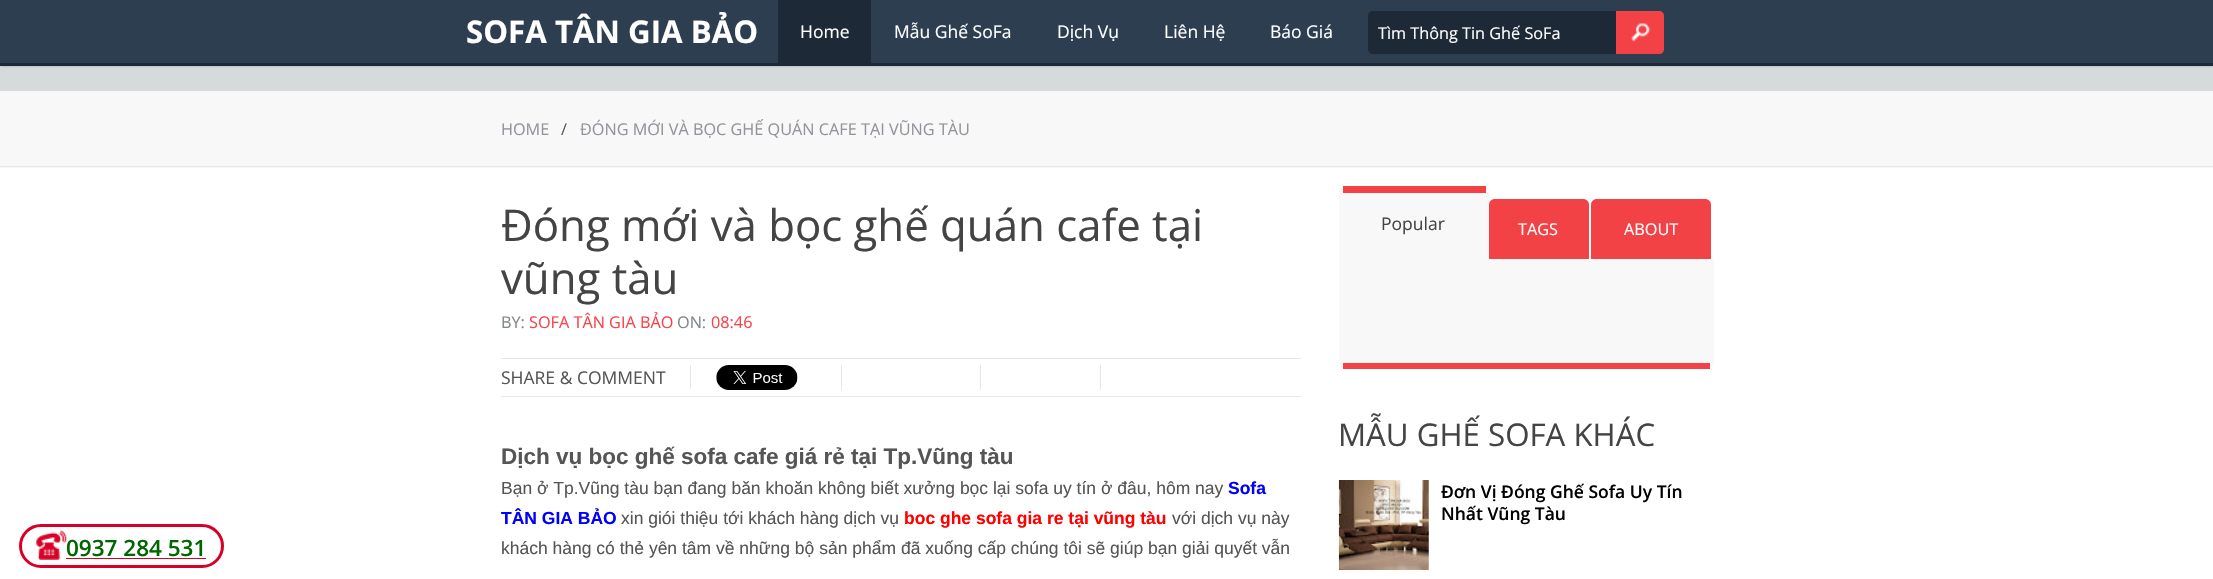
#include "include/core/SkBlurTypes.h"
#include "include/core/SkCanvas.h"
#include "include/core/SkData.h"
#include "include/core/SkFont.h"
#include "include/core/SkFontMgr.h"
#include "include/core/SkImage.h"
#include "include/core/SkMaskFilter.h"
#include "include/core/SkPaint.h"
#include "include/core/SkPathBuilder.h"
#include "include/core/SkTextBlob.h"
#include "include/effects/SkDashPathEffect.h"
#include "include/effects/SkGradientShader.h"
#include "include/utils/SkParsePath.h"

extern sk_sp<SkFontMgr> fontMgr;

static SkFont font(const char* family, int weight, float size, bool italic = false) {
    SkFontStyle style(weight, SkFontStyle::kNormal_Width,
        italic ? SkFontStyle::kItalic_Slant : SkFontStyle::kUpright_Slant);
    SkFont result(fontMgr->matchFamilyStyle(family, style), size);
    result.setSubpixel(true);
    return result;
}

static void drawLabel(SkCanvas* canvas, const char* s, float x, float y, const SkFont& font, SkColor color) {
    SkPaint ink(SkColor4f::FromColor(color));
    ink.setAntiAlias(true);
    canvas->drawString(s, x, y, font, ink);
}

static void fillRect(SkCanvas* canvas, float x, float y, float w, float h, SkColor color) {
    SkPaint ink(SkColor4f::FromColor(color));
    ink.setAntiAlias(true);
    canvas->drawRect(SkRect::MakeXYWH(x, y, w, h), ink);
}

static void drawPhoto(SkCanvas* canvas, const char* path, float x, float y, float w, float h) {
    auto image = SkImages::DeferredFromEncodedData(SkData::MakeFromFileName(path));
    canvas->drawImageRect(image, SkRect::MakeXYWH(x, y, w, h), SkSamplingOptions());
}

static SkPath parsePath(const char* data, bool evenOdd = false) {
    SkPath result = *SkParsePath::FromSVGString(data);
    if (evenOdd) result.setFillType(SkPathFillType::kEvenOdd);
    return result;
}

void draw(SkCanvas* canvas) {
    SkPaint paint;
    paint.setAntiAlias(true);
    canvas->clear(0xFFD6DADB);
    paint.setColor(0x4D000000);
    paint.setMaskFilter(SkMaskFilter::MakeBlur(kNormal_SkBlurStyle, 1));
    canvas->drawRect(SkRect::MakeXYWH(1, 4, 2212, 62), paint);
    paint.setMaskFilter(nullptr);
    fillRect(canvas, 0, 0, 2213, 63, 0xFF2D3E50);
    fillRect(canvas, 0, 63, 2213, 3, 0xFF1D2937);
    SkFont font1 = font("Open Sans", 700, 31.25f);
    drawLabel(canvas, "SOFA TÂN GIA BẢO", 466, 43, font1, 0xFFFFFFFF);
    fillRect(canvas, 778, 0, 93, 63, 0xFF1D2936);
    SkFont font2 = font("Open Sans", 400, 17.5f);
    drawLabel(canvas, "Home", 800, 38, font2, 0xFFFFFFFF);
    drawLabel(canvas, "Mẫu Ghế SoFa", 894, 38, font2, 0xFFFFFFFF);
    drawLabel(canvas, "Dịch Vụ", 1057, 38, font2, 0xFFFFFFFF);
    drawLabel(canvas, "Liên Hệ", 1164, 38, font2, 0xFFFFFFFF);
    drawLabel(canvas, "Báo Giá", 1270, 38, font2, 0xFFFFFFFF);
    paint.setColor(0xFF1D2937);
    canvas->drawPath(parsePath("M1373 11H1618V54H1373C1370 54 1368 52 1368 49V16C1368 13 1370 11 1373 11Z"), paint);
    SkFont font3 = font("Open Sans", 400, 16.25f);
    drawLabel(canvas, "Tìm Thông Tin Ghế SoFa", 1378, 39, font3, 0xFFFFFFFF);
    paint.setColor(0xFFF34246);
    canvas->drawPath(parsePath("M1616 11H1659C1662 11 1664 13 1664 16V49C1664 52 1662 54 1659 54H1616Z"), paint);
    drawPhoto(canvas, "assets/img1.png", 1631, 23, 20, 19);
    fillRect(canvas, 0, 91, 2213, 77, 0xFFF8F8F8);
    fillRect(canvas, 0, 166, 2213, 1, 0xFFE7E7E7);
    fillRect(canvas, 0, 168, 2213, 411, 0xFFFFFFFF);
    paint.setStroke(true);
    paint.setStrokeWidth(3);
    paint.setColor(0xFFD80027);
    canvas->drawRoundRect(SkRect::MakeXYWH(20.5f, 525.5f, 202, 41), 20.5f, 20.5f, paint);
    drawPhoto(canvas, "assets/img2.png", 36, 530, 31, 30);
    SkFont font4 = font("Open Sans", 600, 22.5f);
    drawLabel(canvas, "0937 284 531", 66, 556, font4, 0xFF006600);
    fillRect(canvas, 66, 558, 140, 1, 0xFFD80027);
    drawLabel(canvas, "HOME", 501, 135, font3, 0xFF91949A);
    drawLabel(canvas, "/", 561, 135, font3, 0xFF555555);
    drawLabel(canvas, "ĐÓNG MỚI VÀ BỌC GHẾ QUÁN CAFE TẠI VŨNG TÀU", 580, 135, font3, 0xFF91949A);
    SkFont font5 = font("Open Sans", 400, 43.75f);
    drawLabel(canvas, "Đóng mới và bọc ghế quán cafe tại", 501, 241, font5, 0xFF444444);
    drawLabel(canvas, "vũng tàu", 501, 294, font5, 0xFF444444);
    drawLabel(canvas, "BY:", 501, 328, font3, 0xFF81868D);
    drawLabel(canvas, "SOFA TÂN GIA BẢO", 529, 328, font3, 0xFFFB4248);
    drawLabel(canvas, "ON:", 677, 328, font3, 0xFF81868D);
    drawLabel(canvas, "08:46", 711, 328, font3, 0xFFFB4248);
    fillRect(canvas, 501, 358, 800, 1, 0xFFE7E7E7);
    fillRect(canvas, 501, 396, 800, 1, 0xFFE7E7E7);
    fillRect(canvas, 690, 365, 1, 24, 0xFFE7E7E7);
    drawLabel(canvas, "SHARE & COMMENT", 501, 384, font2, 0xFF555555);
    fillRect(canvas, 841, 365, 1, 25, 0xFFE7E7E7);
    drawPhoto(canvas, "assets/img3.png", 716, 365, 82, 25);
    fillRect(canvas, 980, 365, 1, 25, 0xFFE7E7E7);
    fillRect(canvas, 1100, 365, 1, 25, 0xFFE7E7E7);
    SkFont font6 = font("Liberation Sans", 700, 22.5f);
    drawLabel(canvas, "Dịch vụ bọc ghế sofa cafe giá rẻ tại Tp.Vũng tàu", 501, 464, font6, 0xFF555555);
    SkFont font7 = font("Liberation Sans", 400, 17.5f);
    drawLabel(canvas, "Bạn ở Tp.Vũng tàu bạn đang băn khoăn không biết xưởng bọc lại sofa uy tín ở đâu, hôm nay", 501, 494, font7, 0xFF555555);
    SkFont font8 = font("Liberation Sans", 700, 17.5f);
    drawLabel(canvas, "Sofa", 1228, 494, font8, 0xFF0000FF);
    drawLabel(canvas, "TÂN GIA BẢO", 501, 524, font8, 0xFF0000FF);
    drawLabel(canvas, "xin giói thiệu tới khách hàng dịch vụ", 621, 524, font7, 0xFF555555);
    drawLabel(canvas, "boc ghe sofa gia re tại vũng tàu", 904, 524, font8, 0xFFFF0000);
    drawLabel(canvas, "với dịch vụ này", 1172, 524, font7, 0xFF555555);
    drawLabel(canvas, "khách hàng có thẻ yên tâm về những bộ sản phẩm đã xuống cấp chúng tôi sẽ giúp bạn giải quyết vẫn", 501, 554, font7, 0xFF555555);
    paint.setStroke(false);
    paint.setColor(0xFFF8F8F8);
    canvas->drawPath(parsePath("M1339 199H1714V361C1714 365.5 1710.5 369 1706 369H1347C1342.5 369 1339 365.5 1339 361Z"), paint);
    fillRect(canvas, 1343, 363, 367, 6, 0xFFF34246);
    canvas->drawPath(parsePath("M1345 186H1483C1486.5 186 1489 188.5 1489 192V260H1339V192C1339 188.5 1341.5 186 1345 186Z"), paint);
    fillRect(canvas, 1343, 186, 143, 7, 0xFFF34246);
    drawLabel(canvas, "Popular", 1381, 230, font2, 0xFF444444);
    fillRect(canvas, 1589, 199, 3, 60, 0xFFFFFFFF);
    paint.setColor(0xFFF34246);
    canvas->drawPath(parsePath("M1495 199H1583C1586.5 199 1589 201.5 1589 205V259H1489V205C1489 201.5 1491.5 199 1495 199Z"), paint);
    drawLabel(canvas, "TAGS", 1518, 235, font3, 0xFFFFFFFF);
    fillRect(canvas, 1711, 199, 3, 60, 0xFFFFFFFF);
    canvas->drawPath(parsePath("M1597 199H1705C1708.5 199 1711 201.5 1711 205V259H1591V205C1591 201.5 1593.5 199 1597 199Z"), paint);
    drawLabel(canvas, "ABOUT", 1624, 235, font3, 0xFFFFFFFF);
    SkFont font9 = font("Open Sans", 400, 31.25f);
    drawLabel(canvas, "MẪU GHẾ SOFA KHÁC", 1338, 446, font9, 0xFF444444);
    drawPhoto(canvas, "assets/img4.png", 1338, 480, 91, 90);
    SkFont font10 = font("Open Sans", 600, 17.5f);
    drawLabel(canvas, "Đơn Vị Đóng Ghế Sofa Uy Tín", 1441, 498, font10, 0xFF000000);
    drawLabel(canvas, "Nhất Vũng Tàu", 1441, 520, font10, 0xFF000000);
}
